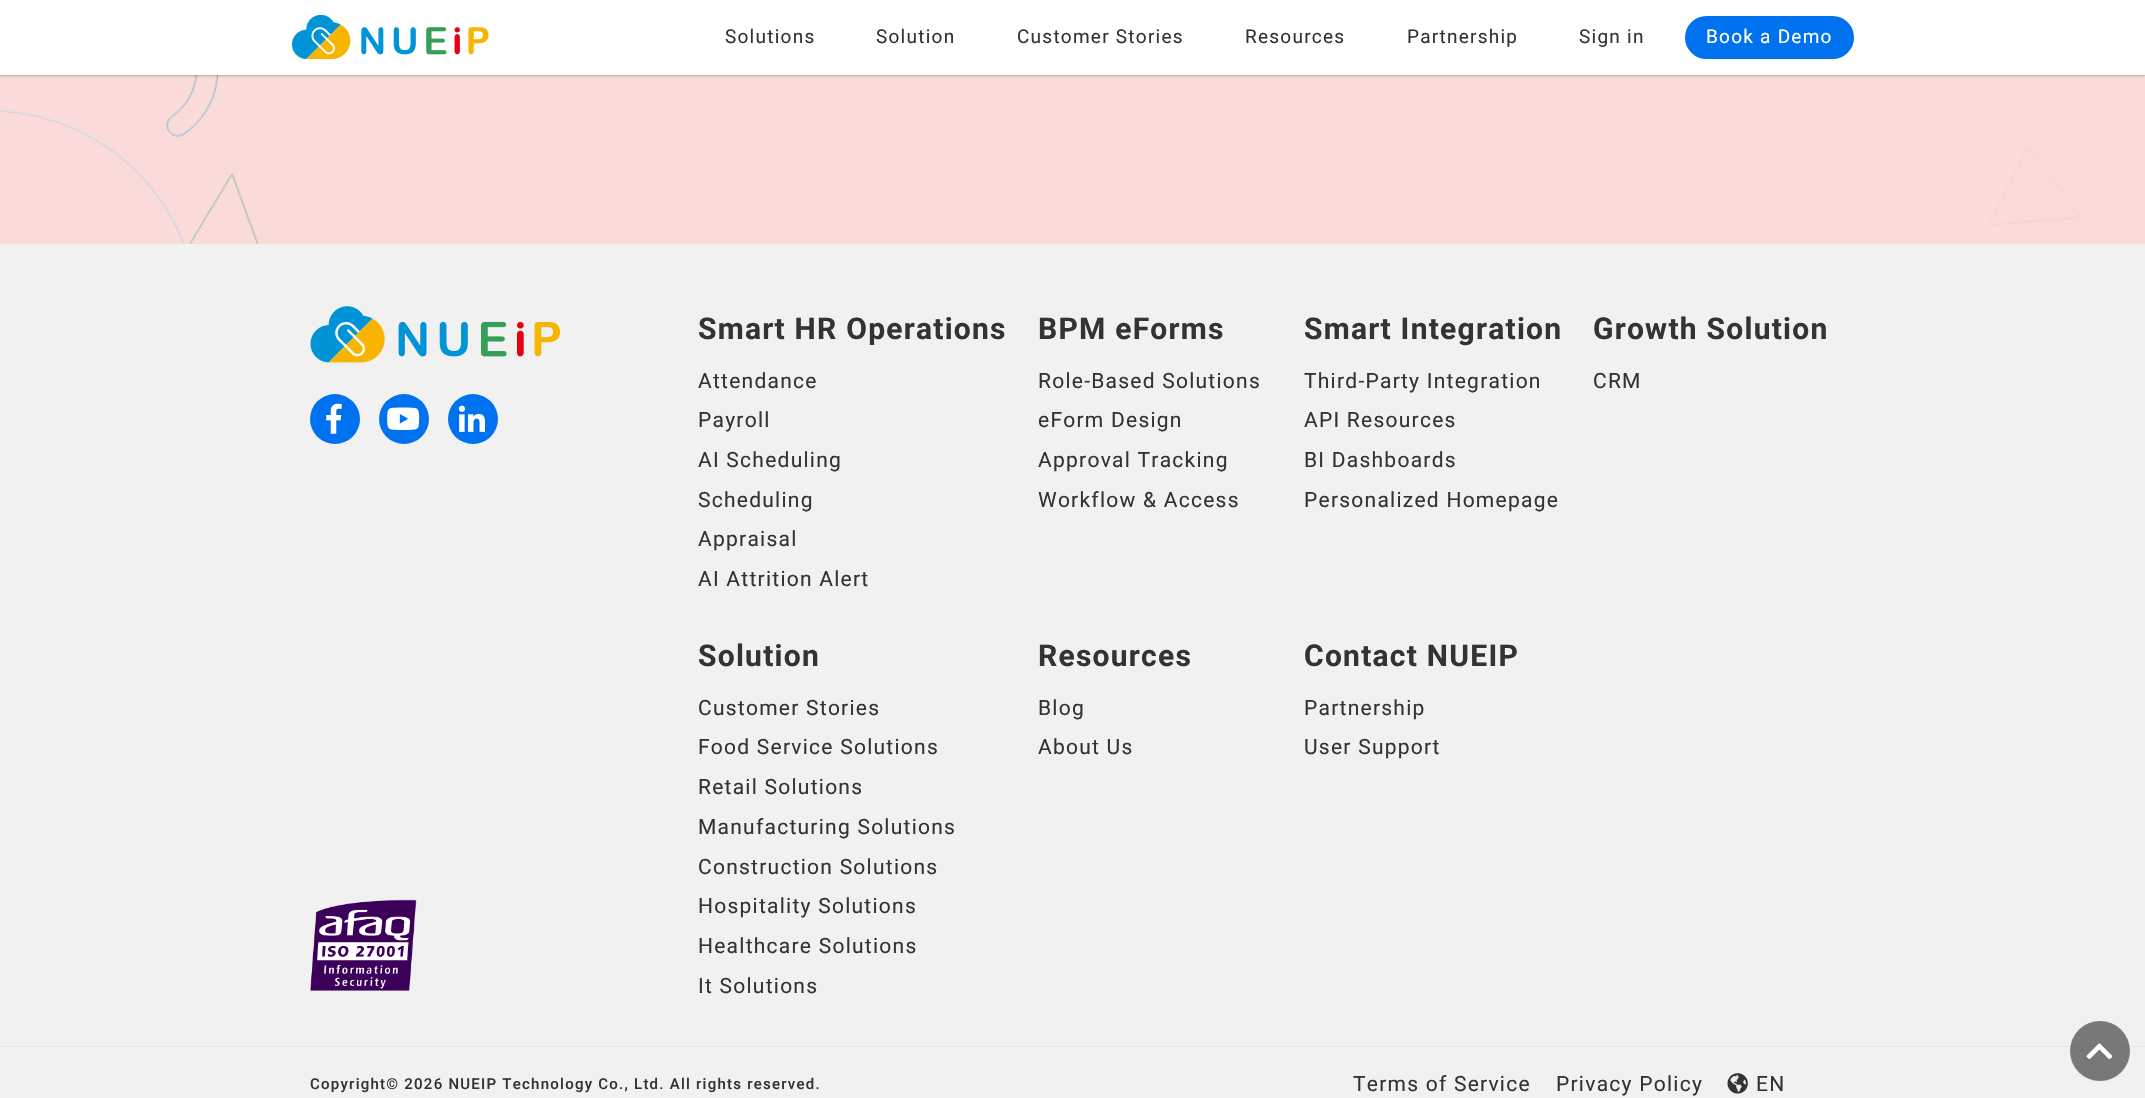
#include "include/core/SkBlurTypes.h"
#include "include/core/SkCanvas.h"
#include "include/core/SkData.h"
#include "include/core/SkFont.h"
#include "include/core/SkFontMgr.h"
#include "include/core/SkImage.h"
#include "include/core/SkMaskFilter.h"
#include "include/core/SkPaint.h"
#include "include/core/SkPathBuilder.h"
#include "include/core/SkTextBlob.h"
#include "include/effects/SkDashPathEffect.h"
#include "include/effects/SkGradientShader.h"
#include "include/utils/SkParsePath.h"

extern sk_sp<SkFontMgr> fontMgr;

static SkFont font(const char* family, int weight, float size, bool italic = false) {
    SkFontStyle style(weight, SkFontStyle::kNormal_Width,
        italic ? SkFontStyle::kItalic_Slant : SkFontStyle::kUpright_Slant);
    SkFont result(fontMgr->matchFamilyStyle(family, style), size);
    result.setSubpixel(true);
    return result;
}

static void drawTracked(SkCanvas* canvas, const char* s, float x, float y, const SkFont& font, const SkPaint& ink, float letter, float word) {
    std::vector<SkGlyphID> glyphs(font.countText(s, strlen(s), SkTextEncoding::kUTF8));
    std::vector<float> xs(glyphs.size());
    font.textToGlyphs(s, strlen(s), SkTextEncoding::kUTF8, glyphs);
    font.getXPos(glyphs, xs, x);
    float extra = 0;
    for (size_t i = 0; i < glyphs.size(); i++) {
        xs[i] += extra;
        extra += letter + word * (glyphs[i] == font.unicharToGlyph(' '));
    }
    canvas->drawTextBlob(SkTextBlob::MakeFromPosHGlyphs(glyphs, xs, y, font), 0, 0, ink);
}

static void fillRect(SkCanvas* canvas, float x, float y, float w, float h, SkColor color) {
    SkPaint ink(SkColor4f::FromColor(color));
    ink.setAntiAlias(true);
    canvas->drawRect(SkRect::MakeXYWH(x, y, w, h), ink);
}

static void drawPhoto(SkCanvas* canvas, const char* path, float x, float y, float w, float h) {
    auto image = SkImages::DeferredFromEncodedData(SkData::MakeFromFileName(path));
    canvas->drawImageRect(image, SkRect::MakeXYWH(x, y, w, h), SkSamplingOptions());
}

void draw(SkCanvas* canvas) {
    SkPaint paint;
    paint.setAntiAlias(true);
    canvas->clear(0xFFFADBDA);
    drawPhoto(canvas, "assets/img2.png", 0, 75, 2082, 169);
    paint.setColor(0x40000000);
    paint.setMaskFilter(SkMaskFilter::MakeBlur(kNormal_SkBlurStyle, 1));
    canvas->drawRect(SkRect::MakeXYWH(0, 1, 2145, 75), paint);
    paint.setMaskFilter(nullptr);
    fillRect(canvas, 0, 0, 2145, 75, 0xFFFFFFFF);
    drawPhoto(canvas, "assets/img1.png", 291, 15, 198, 45);
    SkFont font1 = font("Roboto", 400, 19);
    paint.setColor(0xFF333333);
    drawTracked(canvas, "Solutions", 725, 43, font1, paint, 1.25f, 0);
    drawTracked(canvas, "Solution", 876, 43, font1, paint, 1.25f, 0);
    drawTracked(canvas, "Customer Stories", 1017, 43, font1, paint, 1.25f, 0);
    drawTracked(canvas, "Resources", 1245, 43, font1, paint, 1.25f, 0);
    drawTracked(canvas, "Partnership", 1407, 43, font1, paint, 1.25f, 0);
    drawTracked(canvas, "Sign in", 1579, 43, font1, paint, 1.25f, 0);
    paint.setColor(0xFF0072F0);
    canvas->drawRoundRect(SkRect::MakeXYWH(1686.5f, 17.5f, 166, 40), 20, 20, paint);
    paint.setStroke(true);
    paint.setStrokeWidth(3);
    canvas->drawRoundRect(SkRect::MakeXYWH(1686.5f, 17.5f, 166, 40), 20, 20, paint);
    paint.setStroke(false);
    paint.setColor(0xFFFFFFFF);
    drawTracked(canvas, "Book a Demo", 1706, 43, font1, paint, 1.25f, 0);
    fillRect(canvas, 0, 244, 2145, 854, 0xFFF1F1F1);
    drawPhoto(canvas, "assets/img3.png", 310, 306, 250, 57);
    paint.setColor(0xFF0072F0);
    canvas->drawCircle(335, 419, 25, paint);
    drawPhoto(canvas, "assets/img4.png", 326, 403, 16, 31);
    canvas->drawCircle(404, 419, 25, paint);
    drawPhoto(canvas, "assets/img5.png", 387, 407, 33, 23);
    canvas->drawCircle(473, 419, 25, paint);
    drawPhoto(canvas, "assets/img6.png", 458, 405, 27, 27);
    drawPhoto(canvas, "assets/img7.png", 310, 899, 107, 92);
    SkFont font2 = font("Roboto", 700, 30);
    paint.setColor(0xFF333333);
    drawTracked(canvas, "Smart HR Operations", 698, 339, font2, paint, 1.25f, 0);
    SkFont font3 = font("Roboto", 400, 21);
    drawTracked(canvas, "Attendance", 698, 388, font3, paint, 1.25f, 0);
    drawTracked(canvas, "Payroll", 698, 427, font3, paint, 1.25f, 0);
    drawTracked(canvas, "AI Scheduling", 698, 467, font3, paint, 1.25f, 0);
    drawTracked(canvas, "Scheduling", 698, 507, font3, paint, 1.25f, 0);
    drawTracked(canvas, "Appraisal", 698, 546, font3, paint, 1.25f, 0);
    drawTracked(canvas, "AI Attrition Alert", 698, 586, font3, paint, 1.25f, 0);
    drawTracked(canvas, "BPM eForms", 1038, 339, font2, paint, 1.25f, 0);
    drawTracked(canvas, "Role-Based Solutions", 1038, 388, font3, paint, 1.25f, 0);
    drawTracked(canvas, "eForm Design", 1038, 427, font3, paint, 1.25f, 0);
    drawTracked(canvas, "Approval Tracking", 1038, 467, font3, paint, 1.25f, 0);
    drawTracked(canvas, "Workflow & Access", 1038, 507, font3, paint, 1.25f, 0);
    drawTracked(canvas, "Smart Integration", 1304, 339, font2, paint, 1.25f, 0);
    drawTracked(canvas, "Third-Party Integration", 1304, 388, font3, paint, 1.25f, 0);
    drawTracked(canvas, "API Resources", 1304, 427, font3, paint, 1.25f, 0);
    drawTracked(canvas, "BI Dashboards", 1304, 467, font3, paint, 1.25f, 0);
    drawTracked(canvas, "Personalized Homepage", 1304, 507, font3, paint, 1.25f, 0);
    drawTracked(canvas, "Growth Solution", 1593, 339, font2, paint, 1.25f, 0);
    drawTracked(canvas, "CRM", 1593, 388, font3, paint, 1.25f, 0);
    drawTracked(canvas, "Solution", 698, 666, font2, paint, 1.25f, 0);
    drawTracked(canvas, "Customer Stories", 698, 715, font3, paint, 1.25f, 0);
    drawTracked(canvas, "Food Service Solutions", 698, 754, font3, paint, 1.25f, 0);
    drawTracked(canvas, "Retail Solutions", 698, 794, font3, paint, 1.25f, 0);
    drawTracked(canvas, "Manufacturing Solutions", 698, 834, font3, paint, 1.25f, 0);
    drawTracked(canvas, "Construction Solutions", 698, 874, font3, paint, 1.25f, 0);
    drawTracked(canvas, "Hospitality Solutions", 698, 913, font3, paint, 1.25f, 0);
    drawTracked(canvas, "Healthcare Solutions", 698, 953, font3, paint, 1.25f, 0);
    drawTracked(canvas, "It Solutions", 698, 993, font3, paint, 1.25f, 0);
    drawTracked(canvas, "Resources", 1038, 666, font2, paint, 1.25f, 0);
    drawTracked(canvas, "Blog", 1038, 715, font3, paint, 1.25f, 0);
    drawTracked(canvas, "About Us", 1038, 754, font3, paint, 1.25f, 0);
    drawTracked(canvas, "Contact NUEIP", 1304, 666, font2, paint, 1.25f, 0);
    drawTracked(canvas, "Partnership", 1304, 715, font3, paint, 1.25f, 0);
    drawTracked(canvas, "User Support", 1304, 754, font3, paint, 1.25f, 0);
    fillRect(canvas, 0, 1046, 2145, 1, 0xFFE6E6E6);
    paint.setColor(0x80000000);
    canvas->drawCircle(2100, 1051, 30, paint);
    drawPhoto(canvas, "assets/img8.png", 2086, 1043, 27, 16);
    SkFont font4 = font("Roboto", 500, 15);
    paint.setColor(0xFF333333);
    drawTracked(canvas, "Copyright© 2026 NUEIP Technology Co., Ltd. All rights reserved.", 310, 1089, font4, paint, 1.25f, 0);
    drawTracked(canvas, "Terms of Service", 1353, 1091, font3, paint, 1.25f, 0);
    drawTracked(canvas, "Privacy Policy", 1556, 1091, font3, paint, 1.25f, 0);
    drawPhoto(canvas, "assets/img9.png", 1727, 1073, 21, 21);
    drawTracked(canvas, "EN", 1756, 1091, font3, paint, 1.25f, 0);
}
